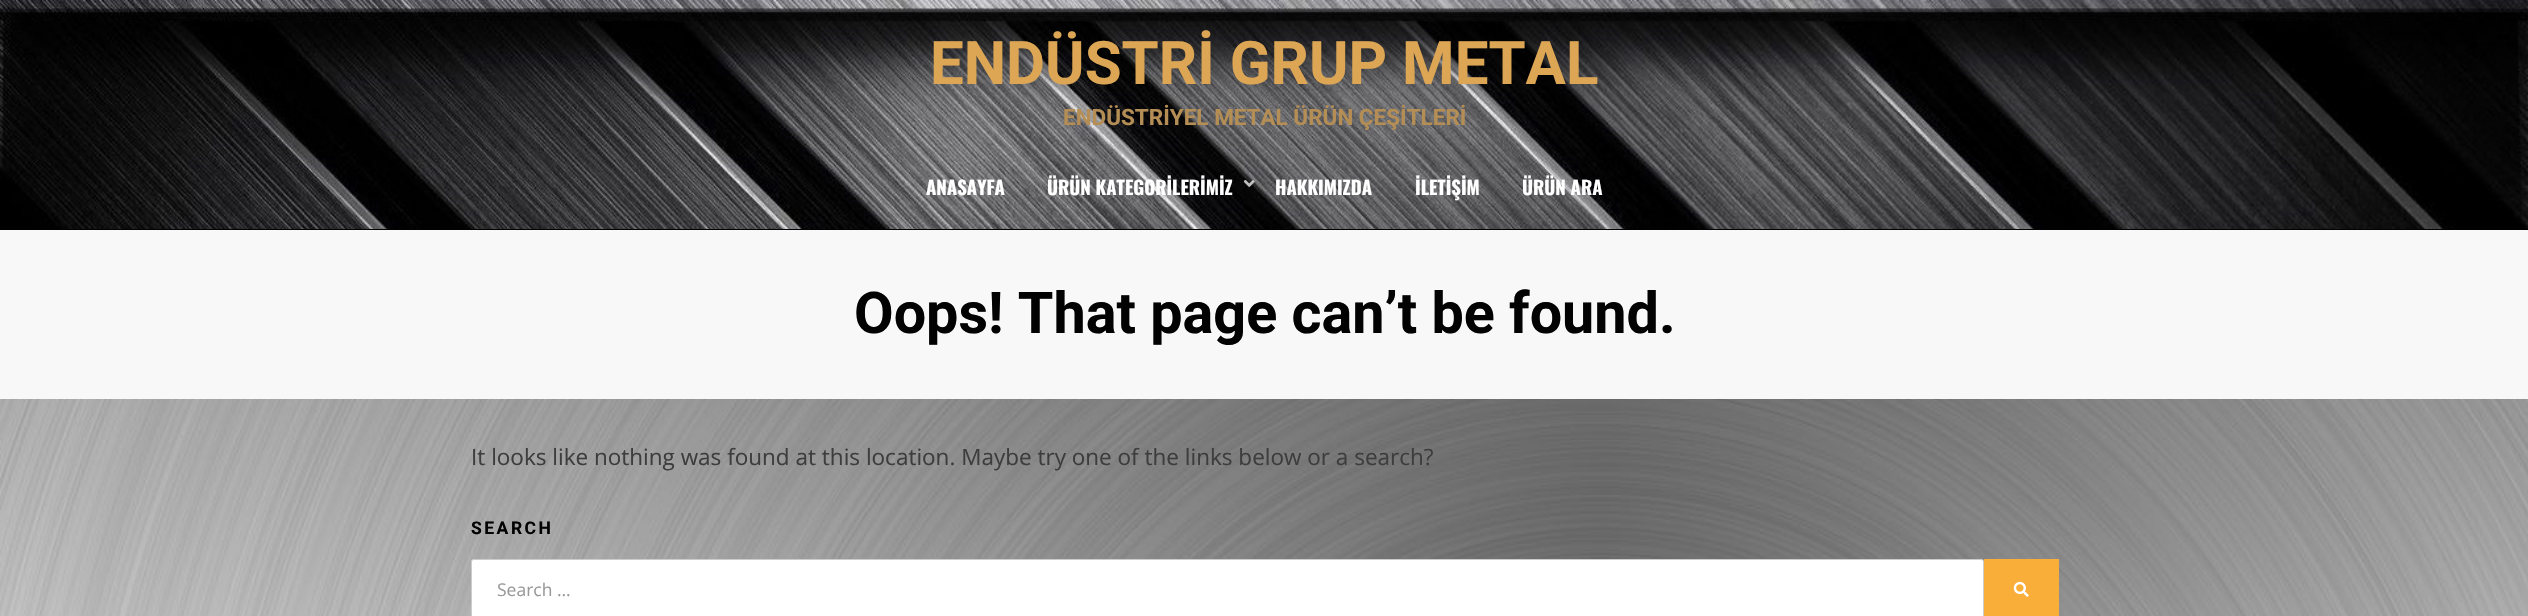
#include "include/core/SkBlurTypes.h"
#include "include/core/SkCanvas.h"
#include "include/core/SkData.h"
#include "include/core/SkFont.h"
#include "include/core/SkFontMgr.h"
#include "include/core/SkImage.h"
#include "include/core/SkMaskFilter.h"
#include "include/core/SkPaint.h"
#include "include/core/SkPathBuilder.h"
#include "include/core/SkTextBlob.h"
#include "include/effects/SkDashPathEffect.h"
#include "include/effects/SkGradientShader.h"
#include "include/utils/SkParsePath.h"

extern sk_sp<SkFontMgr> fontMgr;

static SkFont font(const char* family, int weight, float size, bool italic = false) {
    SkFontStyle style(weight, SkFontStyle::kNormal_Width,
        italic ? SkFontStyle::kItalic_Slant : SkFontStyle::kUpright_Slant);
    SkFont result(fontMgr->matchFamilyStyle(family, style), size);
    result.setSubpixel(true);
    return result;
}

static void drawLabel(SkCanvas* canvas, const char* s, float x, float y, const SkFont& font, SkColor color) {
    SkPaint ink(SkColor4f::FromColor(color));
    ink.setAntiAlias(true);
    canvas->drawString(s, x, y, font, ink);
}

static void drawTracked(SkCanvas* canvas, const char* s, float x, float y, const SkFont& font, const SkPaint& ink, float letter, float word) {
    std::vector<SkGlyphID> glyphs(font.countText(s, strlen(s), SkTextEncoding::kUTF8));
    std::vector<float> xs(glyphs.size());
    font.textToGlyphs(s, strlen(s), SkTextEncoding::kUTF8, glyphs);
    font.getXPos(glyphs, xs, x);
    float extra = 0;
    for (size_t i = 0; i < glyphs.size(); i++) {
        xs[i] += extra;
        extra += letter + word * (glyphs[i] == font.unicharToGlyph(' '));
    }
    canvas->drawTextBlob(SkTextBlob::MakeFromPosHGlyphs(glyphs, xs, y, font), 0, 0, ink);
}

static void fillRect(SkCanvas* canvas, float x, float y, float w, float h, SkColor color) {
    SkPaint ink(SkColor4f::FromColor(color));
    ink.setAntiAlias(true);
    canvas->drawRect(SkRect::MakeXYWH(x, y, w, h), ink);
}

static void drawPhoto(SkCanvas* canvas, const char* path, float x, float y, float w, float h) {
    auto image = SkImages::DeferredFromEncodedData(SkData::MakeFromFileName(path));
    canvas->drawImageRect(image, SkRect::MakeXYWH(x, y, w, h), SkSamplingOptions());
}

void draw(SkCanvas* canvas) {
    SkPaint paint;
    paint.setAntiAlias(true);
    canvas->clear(0xFFFFFFFF);
    drawPhoto(canvas, "assets/img1.png", 0, 399, 2528, 217);
    drawPhoto(canvas, "assets/img2.png", 0, 0, 2528, 229);
    fillRect(canvas, 0, 229, 2528, 1, 0xFF020202);
    SkFont font1 = font("Roboto", 700, 60);
    drawLabel(canvas, "ENDÜSTRİ GRUP METAL", 930, 84, font1, 0xFFDDA654);
    SkFont font2 = font("Roboto", 700, 22.5f);
    drawLabel(canvas, "ENDÜSTRİYEL METAL ÜRÜN ÇEŞİTLERİ", 1063, 125, font2, 0xFFB48E55);
    SkFont font3 = font("Oswald", 700, 18.75f);
    drawLabel(canvas, "ANASAYFA", 926, 195, font3, 0xFFFFFFFF);
    drawLabel(canvas, "ÜRÜN KATEGORİLERİMİZ", 1047, 195, font3, 0xFFFFFFFF);
    drawPhoto(canvas, "assets/img3.png", 1243, 180, 12, 7);
    drawLabel(canvas, "HAKKIMIZDA", 1275, 195, font3, 0xFFFFFFFF);
    drawLabel(canvas, "İLETİŞİM", 1415, 195, font3, 0xFFFFFFFF);
    drawLabel(canvas, "ÜRÜN ARA", 1522, 195, font3, 0xFFFFFFFF);
    fillRect(canvas, 0, 230, 2528, 169, 0xFFF8F8F8);
    SkFont font4 = font("Roboto", 700, 57.5f);
    drawLabel(canvas, "Oops! That page can’t be found.", 854, 333, font4, 0xFF020202);
    SkFont font5 = font("Open Sans", 400, 22.5f);
    drawLabel(canvas, "It looks like nothing was found at this location. Maybe try one of the links below or a search?", 471, 465, font5, 0xFF3D3D3D);
    SkFont font6 = font("Roboto", 700, 17.5f);
    paint.setColor(0xFF020202);
    drawTracked(canvas, "SEARCH", 471, 534, font6, paint, 2.5f, 0);
    paint.setColor(0xFFFFFFFF);
    canvas->drawRoundRect(SkRect::MakeXYWH(471.5f, 559.5f, 1512, 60), 2, 2, paint);
    paint.setStroke(true);
    paint.setStrokeWidth(1);
    paint.setColor(0xFFCCCCCC);
    canvas->drawRoundRect(SkRect::MakeXYWH(471.5f, 559.5f, 1512, 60), 2, 2, paint);
    SkFont font7 = font("Open Sans", 400, 17.5f);
    drawLabel(canvas, "Search …", 497, 596, font7, 0xFF999999);
    fillRect(canvas, 1984, 559, 75, 57, 0xFFF9AE39);
    drawPhoto(canvas, "assets/img4.png", 2013, 581, 16, 16);
}
